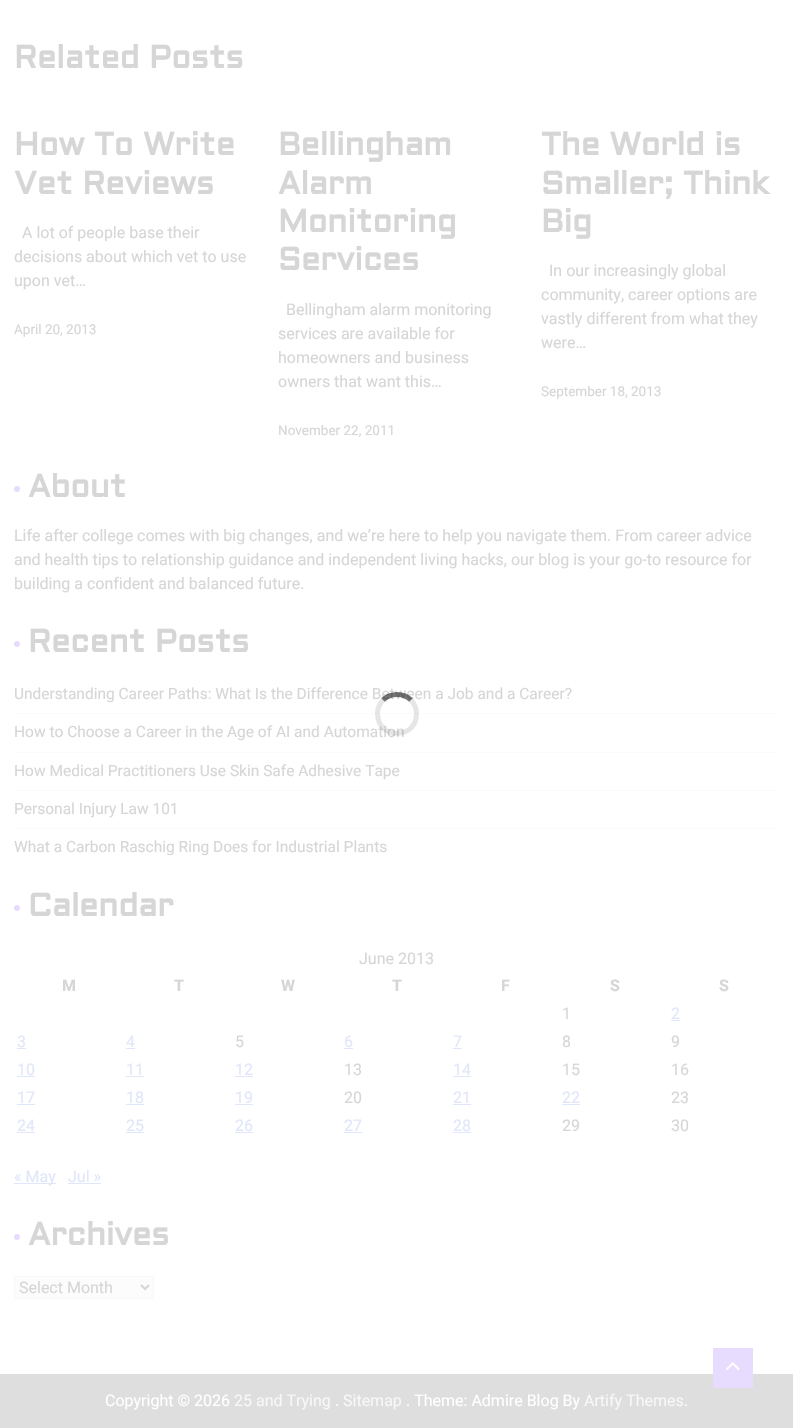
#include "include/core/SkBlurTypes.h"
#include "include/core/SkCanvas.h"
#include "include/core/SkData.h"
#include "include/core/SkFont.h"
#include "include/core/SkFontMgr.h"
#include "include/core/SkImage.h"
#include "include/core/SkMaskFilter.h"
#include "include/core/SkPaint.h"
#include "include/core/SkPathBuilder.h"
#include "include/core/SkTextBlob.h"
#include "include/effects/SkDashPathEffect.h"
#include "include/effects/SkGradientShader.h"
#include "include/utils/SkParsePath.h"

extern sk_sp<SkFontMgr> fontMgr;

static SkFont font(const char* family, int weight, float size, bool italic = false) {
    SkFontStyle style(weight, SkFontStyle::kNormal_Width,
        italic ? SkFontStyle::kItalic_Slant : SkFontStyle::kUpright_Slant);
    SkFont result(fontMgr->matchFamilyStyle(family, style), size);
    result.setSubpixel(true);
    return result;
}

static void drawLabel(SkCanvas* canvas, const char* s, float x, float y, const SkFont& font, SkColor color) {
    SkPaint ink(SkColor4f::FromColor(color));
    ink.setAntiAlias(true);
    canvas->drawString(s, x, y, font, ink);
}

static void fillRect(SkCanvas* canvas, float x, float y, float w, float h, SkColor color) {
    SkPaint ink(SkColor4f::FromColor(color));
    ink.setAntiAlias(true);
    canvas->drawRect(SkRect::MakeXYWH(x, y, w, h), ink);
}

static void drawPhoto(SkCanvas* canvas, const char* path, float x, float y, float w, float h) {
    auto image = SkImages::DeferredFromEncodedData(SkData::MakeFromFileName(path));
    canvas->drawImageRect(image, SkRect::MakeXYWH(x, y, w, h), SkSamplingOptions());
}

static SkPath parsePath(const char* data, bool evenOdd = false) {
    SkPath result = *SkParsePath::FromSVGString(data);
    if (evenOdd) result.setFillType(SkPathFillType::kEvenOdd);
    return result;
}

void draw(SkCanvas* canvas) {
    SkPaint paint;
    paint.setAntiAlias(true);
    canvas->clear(0xFFFFFFFF);
    SkFont font1 = font("Aldrich", 700, 32);
    drawLabel(canvas, "Related Posts", 14, 68, font1, 0xFFD6D6D6);
    drawLabel(canvas, "How To Write", 14, 155, font1, 0xFFD6D6D6);
    drawLabel(canvas, "Vet Reviews", 14, 194, font1, 0xFFD6D6D6);
    SkFont font2 = font("Roboto", 400, 16);
    drawLabel(canvas, "A lot of people base their", 22, 238, font2, 0xFFD6D6D6);
    drawLabel(canvas, "decisions about which vet to use", 14, 262, font2, 0xFFD6D6D6);
    drawLabel(canvas, "upon vet…", 14, 286, font2, 0xFFD6D6D6);
    SkFont font3 = font("Roboto", 400, 13.5f);
    drawLabel(canvas, "April 20, 2013", 14, 334, font3, 0xFFD6D6D6);
    drawLabel(canvas, "Bellingham", 278, 155, font1, 0xFFD6D6D6);
    drawLabel(canvas, "Alarm", 278, 194, font1, 0xFFD6D6D6);
    drawLabel(canvas, "Monitoring", 278, 232, font1, 0xFFD6D6D6);
    drawLabel(canvas, "Services", 278, 270, font1, 0xFFD6D6D6);
    drawLabel(canvas, "Bellingham alarm monitoring", 286, 315, font2, 0xFFD6D6D6);
    drawLabel(canvas, "services are available for", 278, 339, font2, 0xFFD6D6D6);
    drawLabel(canvas, "homeowners and business", 278, 363, font2, 0xFFD6D6D6);
    drawLabel(canvas, "owners that want this…", 278, 387, font2, 0xFFD6D6D6);
    drawLabel(canvas, "November 22, 2011", 278, 435, font3, 0xFFD6D6D6);
    drawLabel(canvas, "The World is", 541, 155, font1, 0xFFD6D6D6);
    drawLabel(canvas, "Smaller; Think", 541, 194, font1, 0xFFD6D6D6);
    drawLabel(canvas, "Big", 541, 232, font1, 0xFFD6D6D6);
    drawLabel(canvas, "In our increasingly global", 549, 276, font2, 0xFFD6D6D6);
    drawLabel(canvas, "community, career options are", 541, 300, font2, 0xFFD6D6D6);
    drawLabel(canvas, "vastly different from what they", 541, 324, font2, 0xFFD6D6D6);
    drawLabel(canvas, "were…", 541, 348, font2, 0xFFD6D6D6);
    drawLabel(canvas, "September 18, 2013", 541, 396, font3, 0xFFD6D6D6);
    paint.setColor(0xFFE7DCFE);
    canvas->drawCircle(17, 489, 3, paint);
    drawLabel(canvas, "About", 28, 497, font1, 0xFFD6D6D6);
    drawLabel(canvas, "Life after college comes with big changes, and we’re here to help you navigate them. From career advice", 14, 541, font2, 0xFFD6D6D6);
    drawLabel(canvas, "and health tips to relationship guidance and independent living hacks, our blog is your go-to resource for", 14, 565, font2, 0xFFD6D6D6);
    drawLabel(canvas, "building a confident and balanced future.", 14, 589, font2, 0xFFD6D6D6);
    canvas->drawCircle(17, 644, 3, paint);
    drawLabel(canvas, "Recent Posts", 28, 652, font1, 0xFFD6D6D6);
    fillRect(canvas, 14, 713, 765, 1, 0xFFFBFBFB);
    SkFont font4 = font("Roboto", 400, 15.5f);
    drawLabel(canvas, "Understanding Career Paths: What Is the Difference Between a Job and a Career?", 14, 699, font4, 0xFFD6D6D6);
    fillRect(canvas, 14, 752, 765, 1, 0xFFFBFBFB);
    drawLabel(canvas, "How to Choose a Career in the Age of AI and Automation", 14, 737, font4, 0xFFD6D6D6);
    fillRect(canvas, 14, 790, 765, 1, 0xFFFBFBFB);
    drawLabel(canvas, "How Medical Practitioners Use Skin Safe Adhesive Tape", 14, 776, font4, 0xFFD6D6D6);
    fillRect(canvas, 14, 828, 765, 1, 0xFFFBFBFB);
    drawLabel(canvas, "Personal Injury Law 101", 14, 814, font4, 0xFFD6D6D6);
    drawLabel(canvas, "What a Carbon Raschig Ring Does for Industrial Plants", 14, 852, font4, 0xFFD6D6D6);
    canvas->drawCircle(17, 908, 3, paint);
    drawLabel(canvas, "Calendar", 28, 916, font1, 0xFFD6D6D6);
    drawLabel(canvas, "June 2013", 359, 964, font2, 0xFFD6D6D6);
    SkFont font5 = font("Roboto", 700, 16);
    drawLabel(canvas, "M", 62, 991, font5, 0xFFD6D6D6);
    drawLabel(canvas, "T", 174, 991, font5, 0xFFD6D6D6);
    drawLabel(canvas, "W", 281, 991, font5, 0xFFD6D6D6);
    drawLabel(canvas, "T", 392, 991, font5, 0xFFD6D6D6);
    drawLabel(canvas, "F", 501, 991, font5, 0xFFD6D6D6);
    drawLabel(canvas, "S", 610, 991, font5, 0xFFD6D6D6);
    drawLabel(canvas, "S", 719, 991, font5, 0xFFD6D6D6);
    drawLabel(canvas, "1", 562, 1019, font2, 0xFFD6D6D6);
    drawLabel(canvas, "2", 671, 1019, font2, 0xFFE1E7FA);
    fillRect(canvas, 671, 1020, 9, 1, 0xFFE1E7FA);
    drawLabel(canvas, "3", 17, 1047, font2, 0xFFE1E7FA);
    fillRect(canvas, 17, 1048, 9, 1, 0xFFE1E7FA);
    drawLabel(canvas, "4", 126, 1047, font2, 0xFFE1E7FA);
    fillRect(canvas, 126, 1048, 9, 1, 0xFFE1E7FA);
    drawLabel(canvas, "5", 235, 1047, font2, 0xFFD6D6D6);
    drawLabel(canvas, "6", 344, 1047, font2, 0xFFE1E7FA);
    fillRect(canvas, 344, 1048, 9, 1, 0xFFE1E7FA);
    drawLabel(canvas, "7", 453, 1047, font2, 0xFFE1E7FA);
    fillRect(canvas, 453, 1048, 9, 1, 0xFFE1E7FA);
    drawLabel(canvas, "8", 562, 1047, font2, 0xFFD6D6D6);
    drawLabel(canvas, "9", 671, 1047, font2, 0xFFD6D6D6);
    drawLabel(canvas, "10", 17, 1075, font2, 0xFFE1E7FA);
    fillRect(canvas, 17, 1076, 18, 1, 0xFFE1E7FA);
    drawLabel(canvas, "11", 126, 1075, font2, 0xFFE1E7FA);
    fillRect(canvas, 126, 1076, 18, 1, 0xFFE1E7FA);
    drawLabel(canvas, "12", 235, 1075, font2, 0xFFE1E7FA);
    fillRect(canvas, 235, 1076, 18, 1, 0xFFE1E7FA);
    drawLabel(canvas, "13", 344, 1075, font2, 0xFFD6D6D6);
    drawLabel(canvas, "14", 453, 1075, font2, 0xFFE1E7FA);
    fillRect(canvas, 453, 1076, 18, 1, 0xFFE1E7FA);
    drawLabel(canvas, "15", 562, 1075, font2, 0xFFD6D6D6);
    drawLabel(canvas, "16", 671, 1075, font2, 0xFFD6D6D6);
    drawLabel(canvas, "17", 17, 1103, font2, 0xFFE1E7FA);
    fillRect(canvas, 17, 1104, 18, 1, 0xFFE1E7FA);
    drawLabel(canvas, "18", 126, 1103, font2, 0xFFE1E7FA);
    fillRect(canvas, 126, 1104, 18, 1, 0xFFE1E7FA);
    drawLabel(canvas, "19", 235, 1103, font2, 0xFFE1E7FA);
    fillRect(canvas, 235, 1104, 18, 1, 0xFFE1E7FA);
    drawLabel(canvas, "20", 344, 1103, font2, 0xFFD6D6D6);
    drawLabel(canvas, "21", 453, 1103, font2, 0xFFE1E7FA);
    fillRect(canvas, 453, 1104, 18, 1, 0xFFE1E7FA);
    drawLabel(canvas, "22", 562, 1103, font2, 0xFFE1E7FA);
    fillRect(canvas, 562, 1104, 18, 1, 0xFFE1E7FA);
    drawLabel(canvas, "23", 671, 1103, font2, 0xFFD6D6D6);
    drawLabel(canvas, "24", 17, 1131, font2, 0xFFE1E7FA);
    fillRect(canvas, 17, 1132, 18, 1, 0xFFE1E7FA);
    drawLabel(canvas, "25", 126, 1131, font2, 0xFFE1E7FA);
    fillRect(canvas, 126, 1132, 18, 1, 0xFFE1E7FA);
    drawLabel(canvas, "26", 235, 1131, font2, 0xFFE1E7FA);
    fillRect(canvas, 235, 1132, 18, 1, 0xFFE1E7FA);
    drawLabel(canvas, "27", 344, 1131, font2, 0xFFE1E7FA);
    fillRect(canvas, 344, 1132, 18, 1, 0xFFE1E7FA);
    drawLabel(canvas, "28", 453, 1131, font2, 0xFFE1E7FA);
    fillRect(canvas, 453, 1132, 18, 1, 0xFFE1E7FA);
    drawLabel(canvas, "29", 562, 1131, font2, 0xFFD6D6D6);
    drawLabel(canvas, "30", 671, 1131, font2, 0xFFD6D6D6);
    fillRect(canvas, 14, 1183, 42, 1, 0xFFE1E7FA);
    drawLabel(canvas, "« May", 14, 1182, font2, 0xFFE1E7FA);
    drawLabel(canvas, "Jul »", 68, 1182, font2, 0xFFE1E7FA);
    fillRect(canvas, 68, 1183, 33, 1, 0xFFE1E7FA);
    canvas->drawCircle(17, 1237, 3, paint);
    drawLabel(canvas, "Archives", 28, 1245, font1, 0xFFD6D6D6);
    paint.setColor(0xFFFCFCFC);
    canvas->drawRect(SkRect::MakeXYWH(14.5f, 1276.5f, 139, 22), paint);
    paint.setStroke(true);
    paint.setStrokeWidth(1);
    paint.setColor(0xFFF7F7F7);
    canvas->drawRect(SkRect::MakeXYWH(14.5f, 1276.5f, 139, 22), paint);
    paint.setStrokeWidth(2);
    paint.setColor(0xFFD6D6D6);
    canvas->drawPath(parsePath("M141 1285L145 1289L149 1285"), paint);
    drawLabel(canvas, "Select Month", 19, 1293, font2, 0xFFD6D6D6);
    paint.setStrokeWidth(5);
    paint.setColor(0x8C000000);
    canvas->drawPath(parsePath("M383 700C390.5 692.5 403.5 692.5 411 700"), paint);
    paint.setColor(0x1C1D1D1D);
    canvas->drawPath(parsePath("M411 700C414.5 704 416.5 709 416.5 714C416.5 737.5 382.5 740.5 378 718C376.5 711.5 378.5 705 383 700"), paint);
    fillRect(canvas, 0, 1374, 793, 54, 0xFFDEDEDE);
    fillRect(canvas, 713, 1348, 40, 40, 0xFFE7DCFE);
    drawPhoto(canvas, "assets/img1.png", 726, 1362, 14, 8);
    drawLabel(canvas, "Copyright © 2026", 105, 1406, font2, 0xFFFFFFFF);
    drawLabel(canvas, "25 and Trying", 234, 1406, font2, 0xFFF8F8F8);
    drawLabel(canvas, ".", 335, 1406, font2, 0xFFFFFFFF);
    drawLabel(canvas, "Sitemap", 343, 1406, font2, 0xFFF8F8F8);
    drawLabel(canvas, ". Theme: Admire Blog By", 406, 1406, font2, 0xFFFFFFFF);
    drawLabel(canvas, "Artify Themes", 584, 1406, font2, 0xFFF8F8F8);
    drawLabel(canvas, ".", 684, 1406, font2, 0xFFFFFFFF);
}
